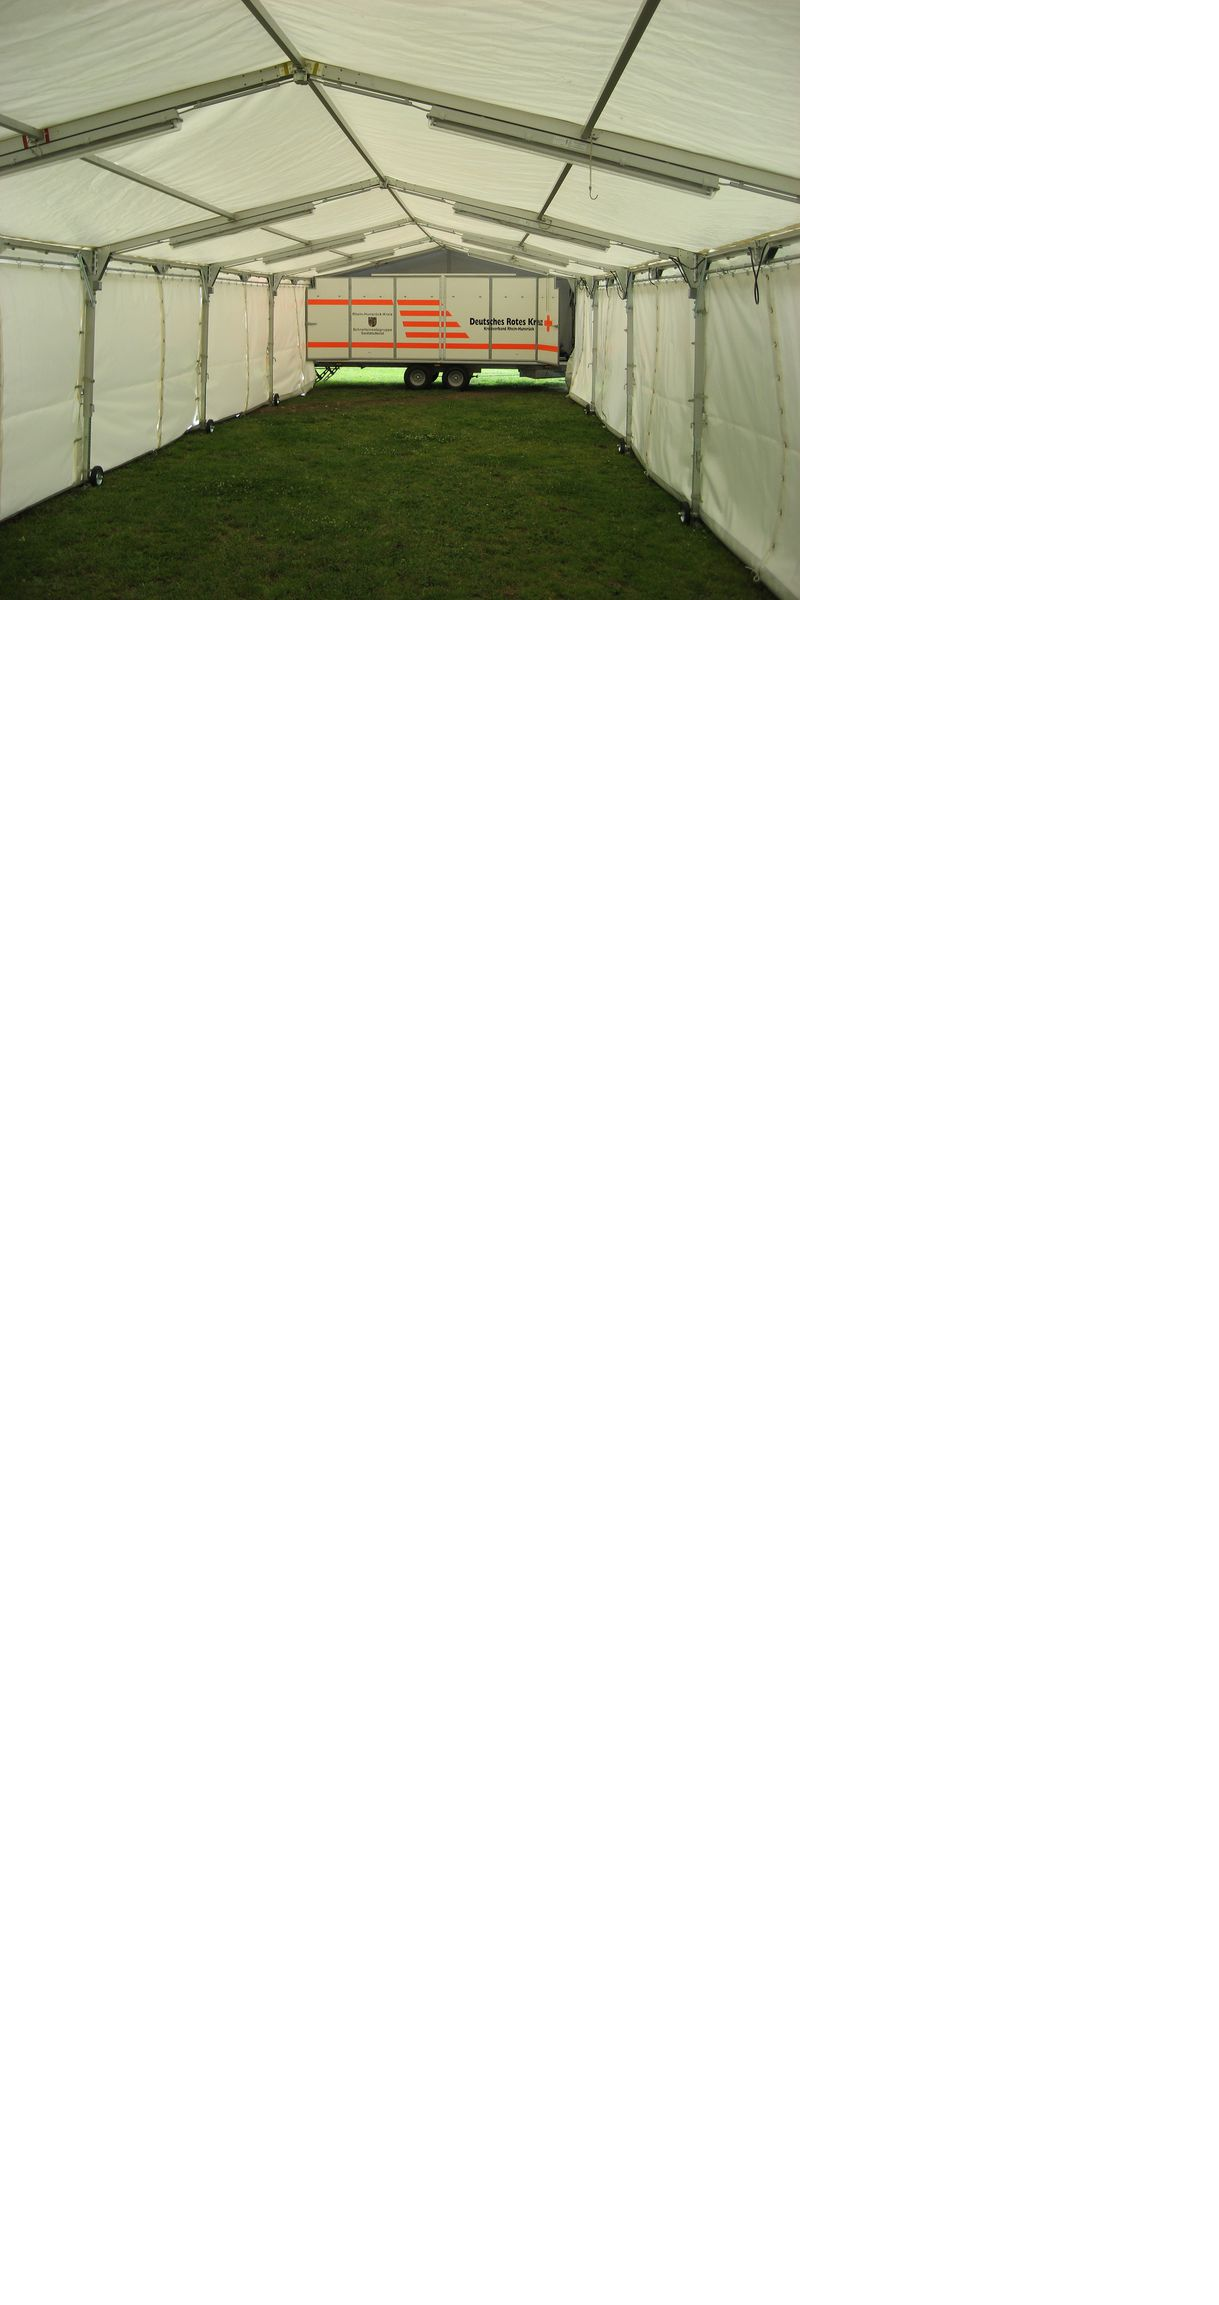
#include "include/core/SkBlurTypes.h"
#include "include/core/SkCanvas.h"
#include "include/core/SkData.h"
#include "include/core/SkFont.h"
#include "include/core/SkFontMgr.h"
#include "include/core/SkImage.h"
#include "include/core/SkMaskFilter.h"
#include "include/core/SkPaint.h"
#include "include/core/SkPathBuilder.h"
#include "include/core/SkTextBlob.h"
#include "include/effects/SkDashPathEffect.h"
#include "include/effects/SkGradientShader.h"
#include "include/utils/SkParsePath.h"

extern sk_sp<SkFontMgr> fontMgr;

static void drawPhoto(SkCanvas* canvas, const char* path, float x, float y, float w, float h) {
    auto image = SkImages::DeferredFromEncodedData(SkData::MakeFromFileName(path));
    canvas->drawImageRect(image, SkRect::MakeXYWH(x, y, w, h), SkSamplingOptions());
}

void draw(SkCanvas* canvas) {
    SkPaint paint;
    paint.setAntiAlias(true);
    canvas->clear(0xFFFFFFFF);
    drawPhoto(canvas, "assets/img1.png", 0, 0, 800, 600);
}
